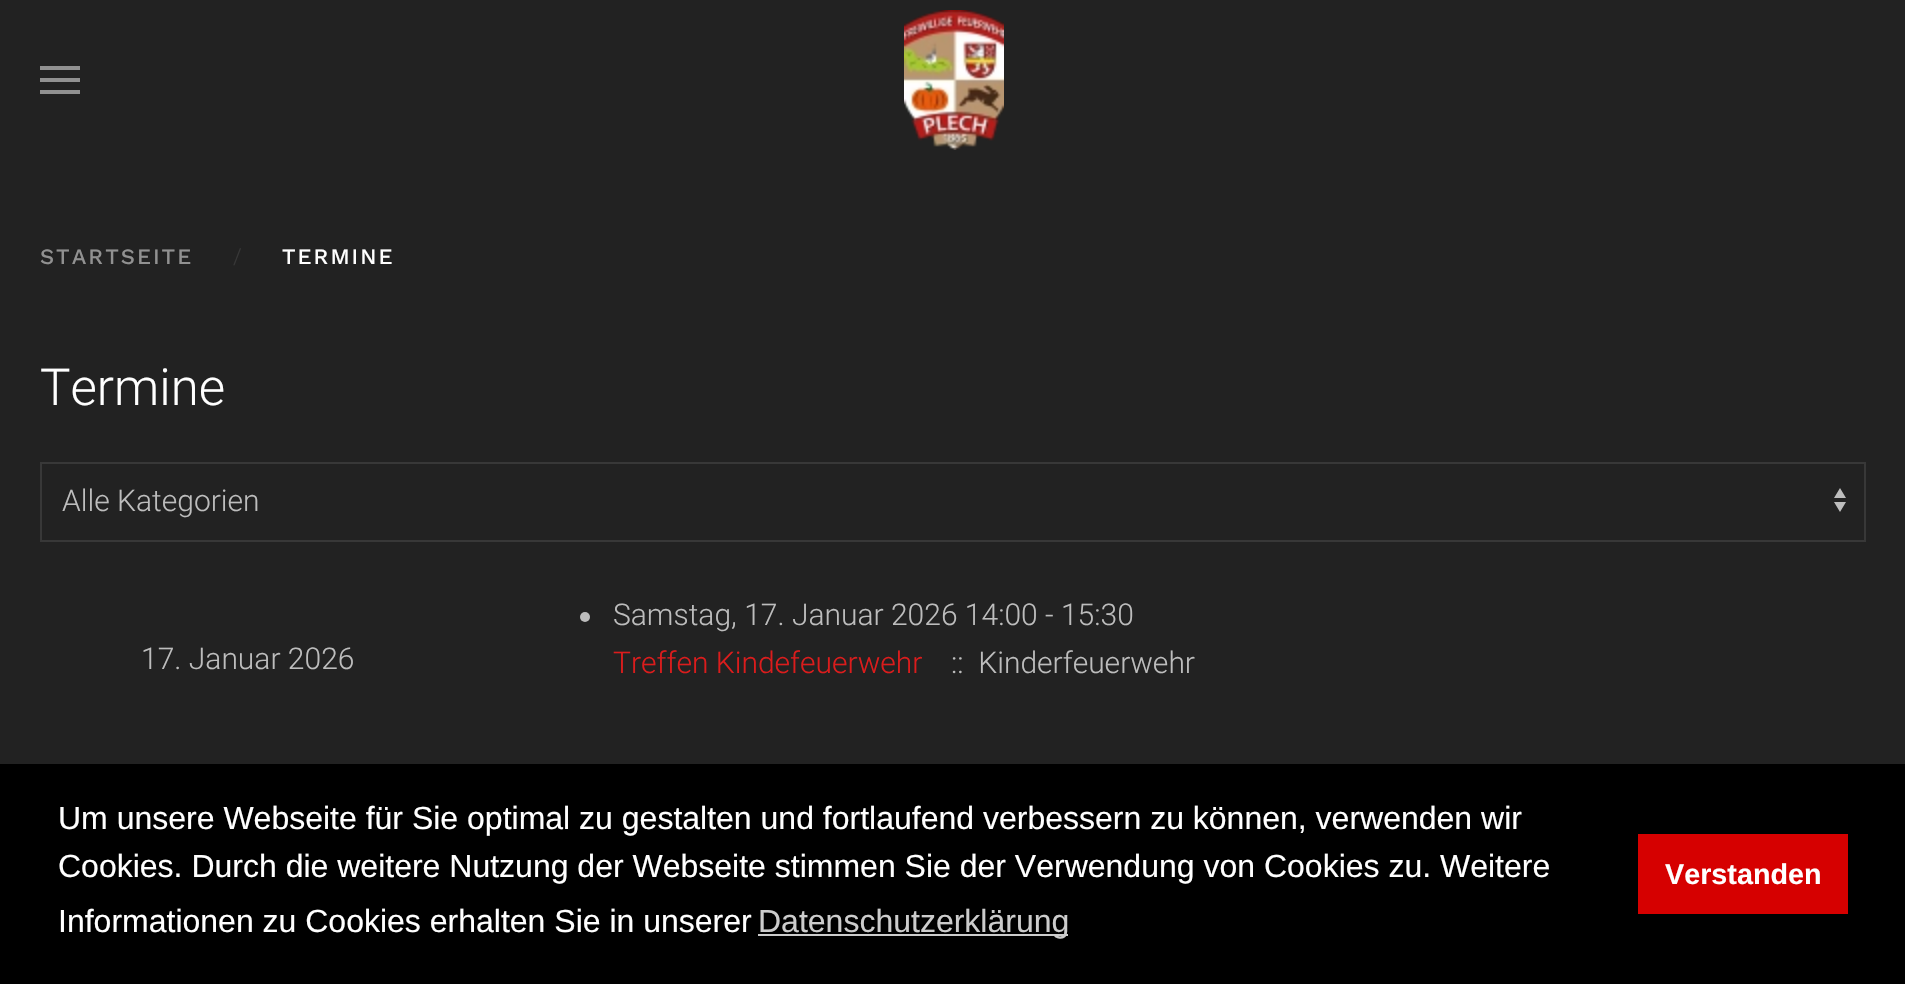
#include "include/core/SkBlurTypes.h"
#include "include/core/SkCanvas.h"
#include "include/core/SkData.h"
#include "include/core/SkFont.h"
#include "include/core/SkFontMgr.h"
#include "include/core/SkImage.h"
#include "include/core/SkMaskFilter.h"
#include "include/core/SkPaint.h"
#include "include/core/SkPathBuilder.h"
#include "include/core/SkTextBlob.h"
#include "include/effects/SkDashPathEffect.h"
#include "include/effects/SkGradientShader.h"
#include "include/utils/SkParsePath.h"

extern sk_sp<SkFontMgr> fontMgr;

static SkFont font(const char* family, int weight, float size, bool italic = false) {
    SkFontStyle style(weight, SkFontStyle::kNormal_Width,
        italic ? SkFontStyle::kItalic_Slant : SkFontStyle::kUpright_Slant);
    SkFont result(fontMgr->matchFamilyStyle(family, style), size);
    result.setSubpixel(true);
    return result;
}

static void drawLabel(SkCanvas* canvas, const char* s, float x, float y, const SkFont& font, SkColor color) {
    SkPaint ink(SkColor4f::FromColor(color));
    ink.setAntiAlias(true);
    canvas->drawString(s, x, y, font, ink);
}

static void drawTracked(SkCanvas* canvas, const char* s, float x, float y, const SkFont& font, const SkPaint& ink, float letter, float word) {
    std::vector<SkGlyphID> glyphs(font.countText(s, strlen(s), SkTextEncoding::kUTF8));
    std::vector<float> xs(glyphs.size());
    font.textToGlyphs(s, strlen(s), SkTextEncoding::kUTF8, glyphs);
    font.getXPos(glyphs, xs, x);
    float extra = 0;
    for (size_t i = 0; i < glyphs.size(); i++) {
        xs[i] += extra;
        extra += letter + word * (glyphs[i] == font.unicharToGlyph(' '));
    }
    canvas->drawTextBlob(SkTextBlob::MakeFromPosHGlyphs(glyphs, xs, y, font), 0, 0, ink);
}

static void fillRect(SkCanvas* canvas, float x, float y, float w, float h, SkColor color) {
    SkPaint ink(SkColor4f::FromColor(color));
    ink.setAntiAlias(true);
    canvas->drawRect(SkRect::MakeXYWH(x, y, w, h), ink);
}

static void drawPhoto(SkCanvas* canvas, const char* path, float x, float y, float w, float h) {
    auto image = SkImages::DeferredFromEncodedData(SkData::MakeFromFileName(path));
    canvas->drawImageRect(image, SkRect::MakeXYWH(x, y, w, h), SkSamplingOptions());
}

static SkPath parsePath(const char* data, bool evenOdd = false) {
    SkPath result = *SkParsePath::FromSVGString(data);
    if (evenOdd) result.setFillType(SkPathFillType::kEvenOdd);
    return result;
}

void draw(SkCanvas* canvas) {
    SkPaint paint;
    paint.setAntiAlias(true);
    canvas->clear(0xFF222222);
    fillRect(canvas, 40, 66, 40, 4, 0xFF919191);
    fillRect(canvas, 40, 78, 40, 4, 0xFF919191);
    fillRect(canvas, 40, 90, 40, 4, 0xFF919191);
    drawPhoto(canvas, "assets/img1.png", 904, 10, 100, 140);
    SkFont font1 = font("Work Sans", 500, 22);
    paint.setColor(0xFF919191);
    drawTracked(canvas, "STARTSEITE", 40, 264, font1, paint, 2, 0);
    SkFont font2 = font("Roboto", 300, 22);
    drawLabel(canvas, "/", 233, 264, font2, 0xFF373737);
    paint.setColor(0xFFFFFFFF);
    drawTracked(canvas, "TERMINE", 282, 264, font1, paint, 2, 0);
    SkFont font3 = font("Roboto", 300, 51);
    drawLabel(canvas, "Termine", 40, 405, font3, 0xFFFFFFFF);
    paint.setColor(0xFFBDBDBD);
    canvas->drawPath(parsePath("M1840 488L1834 498H1846ZM1840 512L1834 502H1846Z"), paint);
    paint.setStroke(true);
    paint.setStrokeWidth(2);
    paint.setColor(0xFF383838);
    canvas->drawRect(SkRect::MakeXYWH(41, 463, 1824, 78), paint);
    SkFont font4 = font("Roboto", 300, 30);
    drawLabel(canvas, "Alle Kategorien", 62, 511, font4, 0xFFBDBDBD);
    drawLabel(canvas, "17. Januar 2026", 141, 669, font4, 0xFFBDBDBD);
    paint.setStroke(false);
    paint.setColor(0xFFBDBDBD);
    canvas->drawCircle(585, 617, 5, paint);
    drawLabel(canvas, "Samstag, 17. Januar 2026 14:00 - 15:30", 613, 625, font4, 0xFFBDBDBD);
    drawLabel(canvas, "Treffen Kindefeuerwehr", 613, 673, font4, 0xFFDB1C1C);
    drawLabel(canvas, "::  Kinderfeuerwehr", 951, 673, font4, 0xFFBDBDBD);
    fillRect(canvas, 0, 764, 1905, 220, 0xFF000000);
    SkFont font5 = font("Liberation Sans", 400, 32);
    drawLabel(canvas, "Um unsere Webseite für Sie optimal zu gestalten und fortlaufend verbessern zu können, verwenden wir", 58, 829, font5, 0xFFFFFFFF);
    drawLabel(canvas, "Cookies. Durch die weitere Nutzung der Webseite stimmen Sie der Verwendung von Cookies zu. Weitere", 58, 877, font5, 0xFFFFFFFF);
    drawLabel(canvas, "Informationen zu Cookies erhalten Sie in unserer", 58, 932, font5, 0xFFFFFFFF);
    fillRect(canvas, 758, 934, 310, 2, 0xFFCCCCCC);
    drawLabel(canvas, "Datenschutzerklärung", 758, 932, font5, 0xFFCCCCCC);
    fillRect(canvas, 1638, 834, 210, 80, 0xFFD60000);
    SkFont font6 = font("Liberation Sans", 700, 28.75f);
    drawLabel(canvas, "Verstanden", 1665, 884, font6, 0xFFFFFFFF);
}
